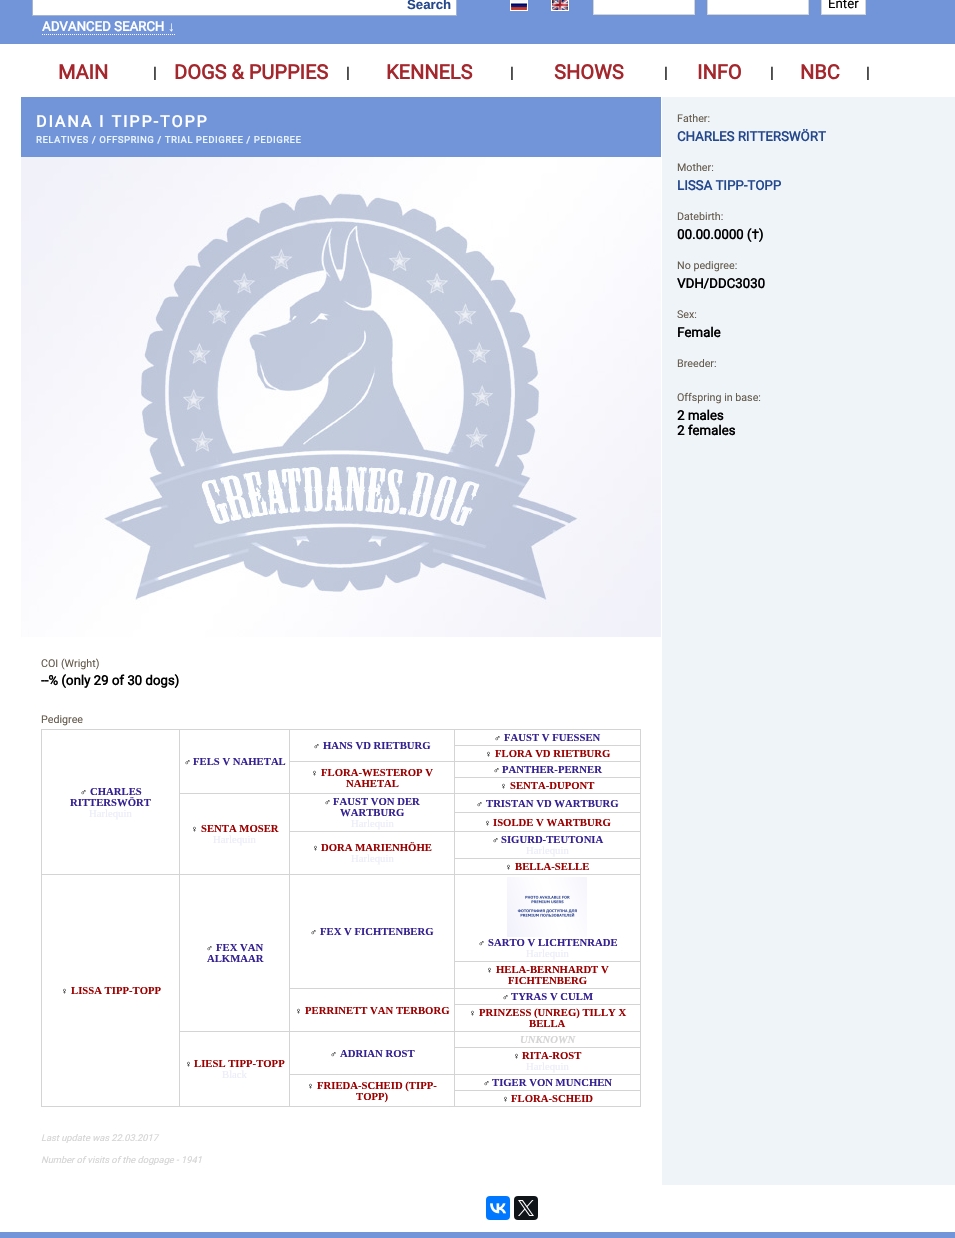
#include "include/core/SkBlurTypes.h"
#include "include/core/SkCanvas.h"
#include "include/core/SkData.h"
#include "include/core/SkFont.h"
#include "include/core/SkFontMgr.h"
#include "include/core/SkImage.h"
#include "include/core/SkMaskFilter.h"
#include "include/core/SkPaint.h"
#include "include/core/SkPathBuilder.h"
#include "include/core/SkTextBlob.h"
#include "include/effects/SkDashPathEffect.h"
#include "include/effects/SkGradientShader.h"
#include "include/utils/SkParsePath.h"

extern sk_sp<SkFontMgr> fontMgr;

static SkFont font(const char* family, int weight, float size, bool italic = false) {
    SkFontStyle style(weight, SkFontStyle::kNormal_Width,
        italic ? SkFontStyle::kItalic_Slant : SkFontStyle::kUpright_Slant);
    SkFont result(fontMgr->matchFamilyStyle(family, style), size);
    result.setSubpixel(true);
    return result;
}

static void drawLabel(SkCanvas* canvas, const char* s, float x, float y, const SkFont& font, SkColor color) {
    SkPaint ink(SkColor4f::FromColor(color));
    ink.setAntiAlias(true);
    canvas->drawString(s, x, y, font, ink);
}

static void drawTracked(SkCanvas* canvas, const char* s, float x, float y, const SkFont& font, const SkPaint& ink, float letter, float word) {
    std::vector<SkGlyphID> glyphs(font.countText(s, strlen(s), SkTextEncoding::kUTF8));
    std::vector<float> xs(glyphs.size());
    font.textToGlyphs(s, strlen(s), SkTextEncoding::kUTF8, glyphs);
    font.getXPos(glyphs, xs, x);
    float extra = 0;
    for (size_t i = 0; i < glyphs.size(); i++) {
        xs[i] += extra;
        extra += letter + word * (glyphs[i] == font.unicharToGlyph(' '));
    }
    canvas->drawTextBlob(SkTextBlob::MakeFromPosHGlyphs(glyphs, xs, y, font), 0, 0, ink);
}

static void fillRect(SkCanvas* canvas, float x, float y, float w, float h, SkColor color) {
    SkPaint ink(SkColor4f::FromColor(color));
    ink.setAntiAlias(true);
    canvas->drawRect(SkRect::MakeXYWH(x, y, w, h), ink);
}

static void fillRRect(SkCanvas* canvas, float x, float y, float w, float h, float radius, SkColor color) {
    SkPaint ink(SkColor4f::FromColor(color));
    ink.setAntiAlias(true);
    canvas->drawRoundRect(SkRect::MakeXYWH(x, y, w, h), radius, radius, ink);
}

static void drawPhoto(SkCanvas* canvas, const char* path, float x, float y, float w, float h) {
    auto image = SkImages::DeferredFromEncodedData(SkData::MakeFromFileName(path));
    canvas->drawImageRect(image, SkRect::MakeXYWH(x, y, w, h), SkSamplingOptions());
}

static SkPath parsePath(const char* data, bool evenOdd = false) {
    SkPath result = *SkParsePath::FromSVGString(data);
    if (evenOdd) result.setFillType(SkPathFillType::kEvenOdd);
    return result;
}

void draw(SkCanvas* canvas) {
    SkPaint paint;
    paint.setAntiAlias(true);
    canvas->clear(0xFFFFFFFF);
    fillRect(canvas, 0, 0, 955, 44, 0xFF7295D9);
    fillRect(canvas, 33, 0, 423, 15, 0xFFFFFFFF);
    fillRect(canvas, 32, 15, 370, 1, 0xFFA5B4D3);
    fillRect(canvas, 32, 0, 1, 16, 0xFFA5B4D3);
    fillRect(canvas, 456, 0, 1, 16, 0xFFA5B4D3);
    fillRect(canvas, 402, 15, 55, 1, 0xFFA5B4D3);
    SkFont font1 = font("Liberation Sans", 700, 13.25f);
    drawLabel(canvas, "Search", 407, 9, font1, 0xFF25488D);
    SkFont font2 = font("Roboto", 700, 13.25f);
    drawLabel(canvas, "ADVANCED SEARCH", 42, 31, font2, 0xFFFFFFFF);
    drawLabel(canvas, "↓", 168, 31, font1, 0xFFFFFFFF);
    paint.setStroke(true);
    paint.setStrokeWidth(1);
    paint.setColor(0xFFFFFFFF);
    paint.setPathEffect(SkDashPathEffect::Make({{1, 1}}, 0));
    canvas->drawPath(parsePath("M42 34.5H175"), paint);
    paint.setPathEffect(nullptr);
    canvas->drawRect(SkRect::MakeXYWH(510.5f, -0.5f, 17, 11), paint);
    drawPhoto(canvas, "assets/img1.png", 511, 0, 16, 10);
    canvas->drawRect(SkRect::MakeXYWH(551.5f, -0.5f, 17, 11), paint);
    drawPhoto(canvas, "assets/img2.png", 552, 0, 16, 10);
    paint.setStroke(false);
    canvas->drawRect(SkRect::MakeXYWH(593.5f, -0.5f, 101, 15), paint);
    paint.setStroke(true);
    paint.setColor(0xFFD4D4D4);
    canvas->drawRect(SkRect::MakeXYWH(593.5f, -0.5f, 101, 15), paint);
    paint.setStroke(false);
    paint.setColor(0xFFFFFFFF);
    canvas->drawRect(SkRect::MakeXYWH(707.5f, -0.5f, 101, 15), paint);
    paint.setStroke(true);
    paint.setColor(0xFFD4D4D4);
    canvas->drawRect(SkRect::MakeXYWH(707.5f, -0.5f, 101, 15), paint);
    paint.setStroke(false);
    paint.setColor(0xFFFFFFFF);
    canvas->drawRect(SkRect::MakeXYWH(821.5f, -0.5f, 44, 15), paint);
    paint.setStroke(true);
    paint.setColor(0xFFD4D4D4);
    canvas->drawRect(SkRect::MakeXYWH(821.5f, -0.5f, 44, 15), paint);
    SkFont font3 = font("Roboto", 400, 13.25f);
    drawLabel(canvas, "Enter", 828, 8, font3, 0xFF000000);
    SkFont font4 = font("Roboto", 700, 20);
    drawLabel(canvas, "MAIN", 58, 79, font4, 0xFFA4272D);
    SkFont font5 = font("Roboto", 400, 16);
    drawLabel(canvas, "|", 153, 78, font5, 0xFF000000);
    drawLabel(canvas, "DOGS & PUPPIES", 174, 79, font4, 0xFFA4272D);
    drawLabel(canvas, "|", 346, 78, font5, 0xFF000000);
    drawLabel(canvas, "KENNELS", 386, 79, font4, 0xFFA4272D);
    drawLabel(canvas, "|", 510, 78, font5, 0xFF000000);
    drawLabel(canvas, "SHOWS", 554, 79, font4, 0xFFA4272D);
    drawLabel(canvas, "|", 664, 78, font5, 0xFF000000);
    drawLabel(canvas, "INFO", 697, 79, font4, 0xFFA4272D);
    drawLabel(canvas, "|", 770, 78, font5, 0xFF000000);
    drawLabel(canvas, "NBC", 800, 79, font4, 0xFFA4272D);
    drawLabel(canvas, "|", 866, 78, font5, 0xFF000000);
    fillRect(canvas, 21, 97, 640, 60, 0xFF7295D9);
    SkFont font6 = font("Roboto", 700, 16);
    paint.setStroke(false);
    paint.setColor(0xFFFFFFFF);
    drawTracked(canvas, "DIANA I TIPP-TOPP", 36, 127, font6, paint, 2, 0);
    SkFont font7 = font("Roboto", 700, 9.3f);
    paint.setColor(0xFFE8F4FE);
    drawTracked(canvas, "RELATIVES / OFFSPRING / TRIAL PEDIGREE / PEDIGREE", 36, 143, font7, paint, 0.65f, 0);
    drawPhoto(canvas, "assets/img3.png", 21, 157, 640, 480);
    SkFont font8 = font("Roboto", 400, 10.7f);
    drawLabel(canvas, "COI (Wright)", 41, 667, font8, 0xFF655B4D);
    drawLabel(canvas, "--% (only 29 of 30 dogs)", 41, 685, font2, 0xFF000000);
    drawLabel(canvas, "Pedigree", 41, 723, font8, 0xFF655B4D);
    fillRect(canvas, 41, 729, 599, 377, 0xFFD4D4D4);
    fillRect(canvas, 455, 730, 185, 15, 0xFFFFFFFF);
    SkFont font9 = font("Liberation Sans", 700, 9.3f);
    drawLabel(canvas, "♂", 494, 741, font9, 0xFF000000);
    SkFont font10 = font("Liberation Serif", 700, 10.7f);
    drawLabel(canvas, "FAUST V FUESSEN", 504, 741, font10, 0xFF352192);
    fillRect(canvas, 290, 730, 164, 31, 0xFFFFFFFF);
    drawLabel(canvas, "♂", 313, 749, font9, 0xFF000000);
    drawLabel(canvas, "HANS VD RIETBURG", 323, 749, font10, 0xFF352192);
    fillRect(canvas, 180, 730, 109, 63, 0xFFFFFFFF);
    drawLabel(canvas, "♂", 184, 765, font9, 0xFF000000);
    drawLabel(canvas, "FELS V NAHETAL", 193, 765, font10, 0xFF352192);
    fillRect(canvas, 42, 730, 137, 144, 0xFFFFFFFF);
    drawLabel(canvas, "♂", 80, 795, font9, 0xFF000000);
    drawLabel(canvas, "CHARLES", 90, 795, font10, 0xFF352192);
    drawLabel(canvas, "RITTERSWÖRT", 70, 806, font10, 0xFF352192);
    SkFont font11 = font("Liberation Serif", 400, 10.7f);
    drawLabel(canvas, "Harlequin", 89, 817, font11, 0xFFECECF9);
    fillRect(canvas, 455, 746, 185, 15, 0xFFFFFFFF);
    fillRect(canvas, 640, 1090, 1, 17, 0xFFD4D4D4);
    fillRect(canvas, 640, 1074, 1, 17, 0xFFD4D4D4);
    fillRect(canvas, 640, 1047, 1, 28, 0xFFD4D4D4);
    fillRect(canvas, 640, 1031, 1, 17, 0xFFD4D4D4);
    fillRect(canvas, 640, 1004, 1, 28, 0xFFD4D4D4);
    fillRect(canvas, 640, 988, 1, 17, 0xFFD4D4D4);
    fillRect(canvas, 640, 961, 1, 28, 0xFFD4D4D4);
    fillRect(canvas, 640, 874, 1, 88, 0xFFD4D4D4);
    fillRect(canvas, 640, 858, 1, 17, 0xFFD4D4D4);
    fillRect(canvas, 640, 831, 1, 28, 0xFFD4D4D4);
    fillRect(canvas, 640, 812, 1, 20, 0xFFD4D4D4);
    fillRect(canvas, 640, 793, 1, 20, 0xFFD4D4D4);
    fillRect(canvas, 640, 777, 1, 17, 0xFFD4D4D4);
    fillRect(canvas, 640, 761, 1, 17, 0xFFD4D4D4);
    fillRect(canvas, 640, 729, 1, 33, 0xFFD4D4D4);
    drawLabel(canvas, "♀", 485, 757, font9, 0xFF000000);
    drawLabel(canvas, "FLORA VD RIETBURG", 495, 757, font10, 0xFF9D0000);
    fillRect(canvas, 290, 762, 164, 31, 0xFFFFFFFF);
    drawLabel(canvas, "♀", 311, 776, font9, 0xFF000000);
    drawLabel(canvas, "FLORA-WESTEROP V", 321, 776, font10, 0xFF9D0000);
    drawLabel(canvas, "NAHETAL", 346, 787, font10, 0xFF9D0000);
    fillRect(canvas, 455, 762, 185, 15, 0xFFFFFFFF);
    drawLabel(canvas, "♂", 493, 773, font9, 0xFF000000);
    drawLabel(canvas, "PANTHER-PERNER", 502, 773, font10, 0xFF352192);
    fillRect(canvas, 455, 778, 185, 15, 0xFFFFFFFF);
    drawLabel(canvas, "♀", 500, 789, font9, 0xFF000000);
    drawLabel(canvas, "SENTA-DUPONT", 510, 789, font10, 0xFF9D0000);
    fillRect(canvas, 290, 794, 164, 37, 0xFFFFFFFF);
    drawLabel(canvas, "♂", 324, 805, font9, 0xFF000000);
    drawLabel(canvas, "FAUST VON DER", 333, 805, font10, 0xFF352192);
    drawLabel(canvas, "WARTBURG", 340, 816, font10, 0xFF352192);
    drawLabel(canvas, "Harlequin", 351, 827, font11, 0xFFECECF9);
    fillRect(canvas, 455, 794, 185, 18, 0xFFFFFFFF);
    drawLabel(canvas, "♂", 476, 807, font9, 0xFF000000);
    drawLabel(canvas, "TRISTAN VD WARTBURG", 486, 807, font10, 0xFF352192);
    fillRect(canvas, 180, 794, 109, 80, 0xFFFFFFFF);
    drawLabel(canvas, "♀", 191, 832, font9, 0xFF000000);
    drawLabel(canvas, "SENTA MOSER", 201, 832, font10, 0xFF9D0000);
    drawLabel(canvas, "Harlequin", 213, 843, font11, 0xFFECECF9);
    fillRect(canvas, 455, 813, 185, 18, 0xFFFFFFFF);
    drawLabel(canvas, "♀", 484, 826, font9, 0xFF000000);
    drawLabel(canvas, "ISOLDE V WARTBURG", 493, 826, font10, 0xFF9D0000);
    fillRect(canvas, 290, 832, 164, 42, 0xFFFFFFFF);
    drawLabel(canvas, "♀", 312, 851, font9, 0xFF000000);
    drawLabel(canvas, "DORA MARIENHÖHE", 321, 851, font10, 0xFF9D0000);
    drawLabel(canvas, "Harlequin", 351, 862, font11, 0xFFECECF9);
    fillRect(canvas, 455, 832, 185, 26, 0xFFFFFFFF);
    drawLabel(canvas, "♂", 492, 843, font9, 0xFF000000);
    drawLabel(canvas, "SIGURD-TEUTONIA", 501, 843, font10, 0xFF352192);
    drawLabel(canvas, "Harlequin", 526, 854, font11, 0xFFECECF9);
    fillRect(canvas, 455, 859, 185, 15, 0xFFFFFFFF);
    drawLabel(canvas, "♀", 505, 870, font9, 0xFF000000);
    drawLabel(canvas, "BELLA-SELLE", 515, 870, font10, 0xFF9D0000);
    fillRect(canvas, 290, 875, 164, 113, 0xFFFFFFFF);
    drawLabel(canvas, "♂", 310, 935, font9, 0xFF000000);
    drawLabel(canvas, "FEX V FICHTENBERG", 320, 935, font10, 0xFF352192);
    fillRect(canvas, 180, 875, 109, 156, 0xFFFFFFFF);
    drawLabel(canvas, "♂", 206, 951, font9, 0xFF000000);
    drawLabel(canvas, "FEX VAN", 216, 951, font10, 0xFF352192);
    drawLabel(canvas, "ALKMAAR", 207, 962, font10, 0xFF352192);
    fillRect(canvas, 455, 875, 185, 86, 0xFFFFFFFF);
    drawPhoto(canvas, "assets/img4.png", 507, 877, 80, 60);
    drawLabel(canvas, "♂", 478, 946, font9, 0xFF000000);
    drawLabel(canvas, "SARTO V LICHTENRADE", 488, 946, font10, 0xFF352192);
    drawLabel(canvas, "Harlequin", 526, 957, font11, 0xFFECECF9);
    fillRect(canvas, 42, 875, 137, 231, 0xFFFFFFFF);
    drawLabel(canvas, "♀", 61, 994, font9, 0xFF000000);
    drawLabel(canvas, "LISSA TIPP-TOPP", 71, 994, font10, 0xFF9D0000);
    fillRect(canvas, 455, 962, 185, 26, 0xFFFFFFFF);
    drawLabel(canvas, "♀", 486, 973, font9, 0xFF000000);
    drawLabel(canvas, "HELA-BERNHARDT V", 496, 973, font10, 0xFF9D0000);
    drawLabel(canvas, "FICHTENBERG", 508, 984, font10, 0xFF9D0000);
    fillRect(canvas, 455, 989, 185, 15, 0xFFFFFFFF);
    drawLabel(canvas, "♂", 502, 1000, font9, 0xFF000000);
    drawLabel(canvas, "TYRAS V CULM", 511, 1000, font10, 0xFF352192);
    fillRect(canvas, 290, 989, 164, 42, 0xFFFFFFFF);
    drawLabel(canvas, "♀", 295, 1014, font9, 0xFF000000);
    drawLabel(canvas, "PERRINETT VAN TERBORG", 305, 1014, font10, 0xFF9D0000);
    fillRect(canvas, 455, 1005, 185, 26, 0xFFFFFFFF);
    drawLabel(canvas, "♀", 469, 1016, font9, 0xFF000000);
    drawLabel(canvas, "PRINZESS (UNREG) TILLY X", 479, 1016, font10, 0xFF9D0000);
    drawLabel(canvas, "BELLA", 529, 1027, font10, 0xFF9D0000);
    fillRect(canvas, 455, 1032, 185, 15, 0xFFFFFFFF);
    SkFont font12 = font("Liberation Serif", 700, 10.7f, true);
    drawLabel(canvas, "UNKNOWN", 520, 1043, font12, 0xFFD4D4D4);
    fillRect(canvas, 290, 1032, 164, 42, 0xFFFFFFFF);
    drawLabel(canvas, "♂", 330, 1057, font9, 0xFF000000);
    drawLabel(canvas, "ADRIAN ROST", 340, 1057, font10, 0xFF352192);
    fillRect(canvas, 180, 1032, 109, 74, 0xFFFFFFFF);
    drawLabel(canvas, "♀", 185, 1067, font9, 0xFF000000);
    drawLabel(canvas, "LIESL TIPP-TOPP", 194, 1067, font10, 0xFF9D0000);
    drawLabel(canvas, "Black", 222, 1078, font11, 0xFFECECF9);
    fillRect(canvas, 455, 1048, 185, 26, 0xFFFFFFFF);
    drawLabel(canvas, "♀", 513, 1059, font9, 0xFF000000);
    drawLabel(canvas, "RITA-ROST", 522, 1059, font10, 0xFF9D0000);
    drawLabel(canvas, "Harlequin", 526, 1070, font11, 0xFFECECF9);
    fillRect(canvas, 290, 1075, 164, 31, 0xFFFFFFFF);
    drawLabel(canvas, "♀", 307, 1089, font9, 0xFF000000);
    drawLabel(canvas, "FRIEDA-SCHEID (TIPP-", 317, 1089, font10, 0xFF9D0000);
    drawLabel(canvas, "TOPP)", 356, 1100, font10, 0xFF9D0000);
    fillRect(canvas, 455, 1075, 185, 15, 0xFFFFFFFF);
    drawLabel(canvas, "♂", 483, 1086, font9, 0xFF000000);
    drawLabel(canvas, "TIGER VON MUNCHEN", 492, 1086, font10, 0xFF352192);
    fillRect(canvas, 455, 1091, 185, 15, 0xFFFFFFFF);
    fillRect(canvas, 41, 1106, 600, 1, 0xFFD4D4D4);
    drawLabel(canvas, "♀", 502, 1102, font9, 0xFF000000);
    drawLabel(canvas, "FLORA-SCHEID", 511, 1102, font10, 0xFF9D0000);
    SkFont font13 = font("Roboto", 400, 9.3f, true);
    drawLabel(canvas, "Last update was 22.03.2017", 41, 1141, font13, 0xFFD4D4D4);
    drawLabel(canvas, "Number of visits of the dogpage - 1941", 41, 1163, font13, 0xFFD4D4D4);
    fillRect(canvas, 662, 97, 293, 1088, 0xFFEFF4F9);
    drawLabel(canvas, "Father:", 677, 122, font8, 0xFF655B4D);
    drawLabel(canvas, "CHARLES RITTERSWÖRT", 677, 141, font2, 0xFF25488D);
    drawLabel(canvas, "Mother:", 677, 171, font8, 0xFF655B4D);
    drawLabel(canvas, "LISSA TIPP-TOPP", 677, 190, font2, 0xFF25488D);
    drawLabel(canvas, "Datebirth:", 677, 220, font8, 0xFF655B4D);
    drawLabel(canvas, "00.00.0000 (†)", 677, 239, font2, 0xFF000000);
    drawLabel(canvas, "No pedigree:", 677, 269, font8, 0xFF655B4D);
    drawLabel(canvas, "VDH/DDC3030", 677, 288, font2, 0xFF000000);
    drawLabel(canvas, "Sex:", 677, 318, font8, 0xFF655B4D);
    drawLabel(canvas, "Female", 677, 337, font2, 0xFF000000);
    drawLabel(canvas, "Breeder:", 677, 367, font8, 0xFF655B4D);
    drawLabel(canvas, "Offspring in base:", 677, 401, font8, 0xFF655B4D);
    drawLabel(canvas, "2 males", 677, 420, font2, 0xFF000000);
    drawLabel(canvas, "2 females", 677, 435, font2, 0xFF000000);
    fillRRect(canvas, 486, 1196, 24, 24, 4, 0xFF0077FF);
    drawPhoto(canvas, "assets/img5.png", 490, 1203, 16, 11);
    fillRRect(canvas, 514, 1196, 24, 24, 4, 0xFF0F1419);
    drawPhoto(canvas, "assets/img6.png", 518, 1200, 16, 16);
    fillRect(canvas, 0, 1232, 955, 6, 0xFF7295D9);
}
